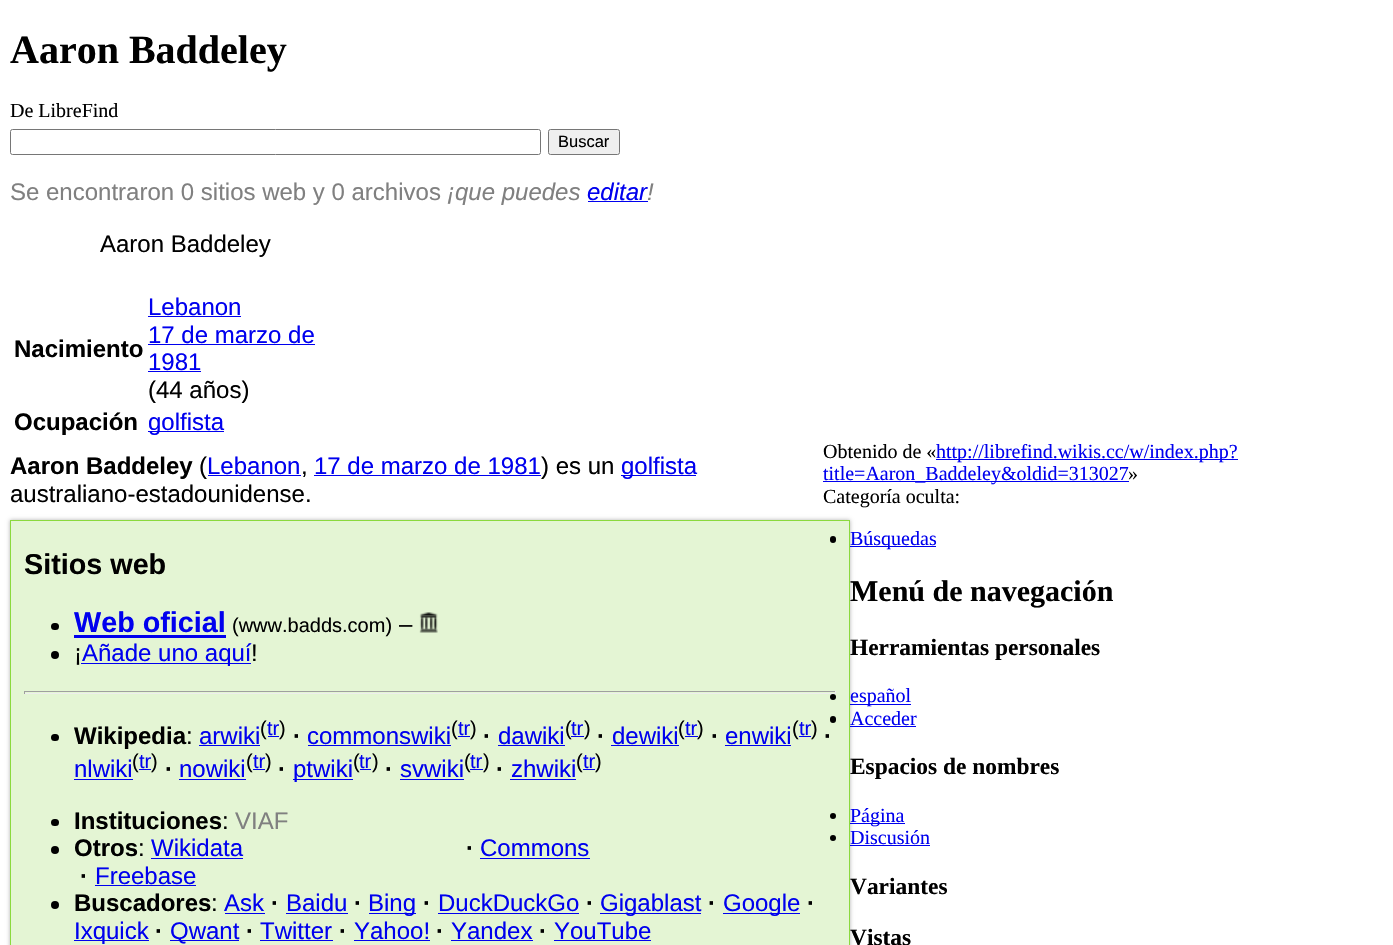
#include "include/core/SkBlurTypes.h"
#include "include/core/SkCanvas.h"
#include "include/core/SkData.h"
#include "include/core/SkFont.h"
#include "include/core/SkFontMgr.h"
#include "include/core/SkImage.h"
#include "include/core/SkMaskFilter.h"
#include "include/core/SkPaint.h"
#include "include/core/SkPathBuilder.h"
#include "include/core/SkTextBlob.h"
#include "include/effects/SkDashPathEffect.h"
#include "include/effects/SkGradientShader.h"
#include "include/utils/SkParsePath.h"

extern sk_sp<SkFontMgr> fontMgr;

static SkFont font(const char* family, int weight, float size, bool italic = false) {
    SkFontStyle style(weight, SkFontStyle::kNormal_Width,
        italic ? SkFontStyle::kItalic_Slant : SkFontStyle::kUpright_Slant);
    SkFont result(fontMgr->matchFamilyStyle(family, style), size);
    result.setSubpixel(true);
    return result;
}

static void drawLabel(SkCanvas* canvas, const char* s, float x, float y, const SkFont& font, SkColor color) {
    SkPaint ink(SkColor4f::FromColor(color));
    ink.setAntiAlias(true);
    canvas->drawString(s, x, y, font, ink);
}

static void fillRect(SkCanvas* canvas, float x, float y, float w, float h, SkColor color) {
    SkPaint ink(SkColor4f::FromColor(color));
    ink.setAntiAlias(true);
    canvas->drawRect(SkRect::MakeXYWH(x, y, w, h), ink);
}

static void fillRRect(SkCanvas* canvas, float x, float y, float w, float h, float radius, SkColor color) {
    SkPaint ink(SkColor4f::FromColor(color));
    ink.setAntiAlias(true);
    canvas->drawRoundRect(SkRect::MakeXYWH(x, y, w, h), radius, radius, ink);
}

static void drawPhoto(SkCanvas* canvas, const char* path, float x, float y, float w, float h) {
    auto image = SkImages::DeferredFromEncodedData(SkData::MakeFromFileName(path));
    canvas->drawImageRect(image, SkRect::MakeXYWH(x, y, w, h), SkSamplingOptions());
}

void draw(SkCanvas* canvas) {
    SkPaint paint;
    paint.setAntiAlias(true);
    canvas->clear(0xFFFFFFFF);
    SkFont font1 = font("Liberation Serif", 700, 40);
    drawLabel(canvas, "Aaron Baddeley", 10, 63, font1, 0xFF000000);
    SkFont font2 = font("Liberation Serif", 400, 20);
    drawLabel(canvas, "De LibreFind", 10, 117, font2, 0xFF000000);
    paint.setStroke(true);
    paint.setStrokeWidth(1);
    paint.setColor(0xFF767676);
    canvas->drawRoundRect(SkRect::MakeXYWH(10.5f, 129.5f, 530, 25), 2, 2, paint);
    paint.setStroke(false);
    paint.setColor(0xFFEFEFEF);
    canvas->drawRoundRect(SkRect::MakeXYWH(548.5f, 129.5f, 71, 25), 2, 2, paint);
    paint.setStroke(true);
    paint.setColor(0xFF767676);
    canvas->drawRoundRect(SkRect::MakeXYWH(548.5f, 129.5f, 71, 25), 2, 2, paint);
    SkFont font3 = font("Liberation Sans", 400, 16.5f);
    drawLabel(canvas, "Buscar", 558, 147, font3, 0xFF000000);
    SkFont font4 = font("Liberation Sans", 400, 24);
    drawLabel(canvas, "Se encontraron 0 sitios web y 0 archivos", 10, 200, font4, 0xFF808080);
    SkFont font5 = font("Liberation Sans", 400, 24, true);
    drawLabel(canvas, "¡que puedes", 447, 200, font5, 0xFF808080);
    drawLabel(canvas, "editar", 587, 200, font5, 0xFF0000EE);
    fillRect(canvas, 588, 201, 60, 1, 0xFF0000EE);
    drawLabel(canvas, "!", 647, 200, font5, 0xFF808080);
    drawLabel(canvas, "Aaron Baddeley", 100, 252, font4, 0xFF000000);
    SkFont font6 = font("Liberation Sans", 700, 24);
    drawLabel(canvas, "Nacimiento", 14, 357, font6, 0xFF000000);
    drawLabel(canvas, "Lebanon", 148, 315, font4, 0xFF0000EE);
    fillRect(canvas, 148, 316, 93, 1, 0xFF0000EE);
    drawLabel(canvas, "17 de marzo de", 148, 343, font4, 0xFF0000EE);
    fillRect(canvas, 148, 344, 167, 1, 0xFF0000EE);
    drawLabel(canvas, "1981", 148, 370, font4, 0xFF0000EE);
    fillRect(canvas, 148, 371, 53, 1, 0xFF0000EE);
    drawLabel(canvas, "(44 años)", 148, 398, font4, 0xFF000000);
    drawLabel(canvas, "Ocupación", 14, 430, font6, 0xFF000000);
    fillRect(canvas, 148, 431, 76, 1, 0xFF0000EE);
    drawLabel(canvas, "golfista", 148, 430, font4, 0xFF0000EE);
    drawLabel(canvas, "Aaron Baddeley", 10, 474, font6, 0xFF000000);
    drawLabel(canvas, "(", 199, 474, font4, 0xFF000000);
    drawLabel(canvas, "Lebanon", 207, 474, font4, 0xFF0000EE);
    fillRect(canvas, 208, 475, 93, 1, 0xFF0000EE);
    drawLabel(canvas, ",", 301, 474, font4, 0xFF000000);
    drawLabel(canvas, "17 de marzo de 1981", 314, 474, font4, 0xFF0000EE);
    fillRect(canvas, 314, 475, 227, 1, 0xFF0000EE);
    drawLabel(canvas, ") es un", 541, 474, font4, 0xFF000000);
    fillRect(canvas, 621, 475, 75, 1, 0xFF0000EE);
    drawLabel(canvas, "golfista", 621, 474, font4, 0xFF0000EE);
    drawLabel(canvas, "australiano-estadounidense.", 10, 502, font4, 0xFF000000);
    paint.setStroke(false);
    paint.setColor(0x4D000000);
    paint.setMaskFilter(SkMaskFilter::MakeBlur(kNormal_SkBlurStyle, 2));
    canvas->drawRect(SkRect::MakeXYWH(10, 520, 840, 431), paint);
    paint.setMaskFilter(nullptr);
    paint.setColor(0xFFE4F5D4);
    canvas->drawRect(SkRect::MakeXYWH(10.5f, 520.5f, 839, 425), paint);
    paint.setStroke(true);
    paint.setColor(0xFF8BD93E);
    canvas->drawRect(SkRect::MakeXYWH(10.5f, 520.5f, 839, 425), paint);
    SkFont font7 = font("Liberation Sans", 700, 28.75f);
    drawLabel(canvas, "Sitios web", 24, 574, font7, 0xFF000000);
    fillRRect(canvas, 51, 623, 8, 7, 3.5f, 0xFF000000);
    drawLabel(canvas, "Web oficial", 74, 632, font7, 0xFF0000EE);
    fillRect(canvas, 74, 635, 152, 3, 0xFF0000EE);
    SkFont font8 = font("Liberation Sans", 400, 20);
    drawLabel(canvas, "(www.badds.com)", 232, 632, font8, 0xFF000000);
    drawLabel(canvas, "–", 399, 632, font4, 0xFF000000);
    drawPhoto(canvas, "assets/img1.png", 419, 612, 19, 21);
    paint.setStroke(false);
    paint.setColor(0xFF000000);
    canvas->drawCircle(55, 655, 4, paint);
    drawLabel(canvas, "¡", 74, 661, font4, 0xFF000000);
    fillRect(canvas, 81, 663, 170, 1, 0xFF0000EE);
    drawLabel(canvas, "Añade uno aquí", 82, 661, font4, 0xFF0000EE);
    drawLabel(canvas, "!", 251, 661, font4, 0xFF000000);
    fillRect(canvas, 24, 691, 812, 1, 0xFF9F9F9F);
    fillRect(canvas, 835, 691, 1, 3, 0xFFEEEEEE);
    fillRect(canvas, 24, 693, 812, 1, 0xFFEEEEEE);
    fillRect(canvas, 24, 691, 1, 3, 0xFF9F9F9F);
    fillRRect(canvas, 51, 734, 8, 7, 3.5f, 0xFF000000);
    drawLabel(canvas, "Wikipedia", 74, 744, font6, 0xFF000000);
    drawLabel(canvas, ":", 186, 744, font4, 0xFF000000);
    drawLabel(canvas, "arwiki", 199, 744, font4, 0xFF0000EE);
    fillRect(canvas, 199, 745, 61, 1, 0xFF0000EE);
    drawLabel(canvas, "(", 260, 735, font8, 0xFF000000);
    drawLabel(canvas, "tr", 267, 735, font8, 0xFF0000EE);
    drawLabel(canvas, ")", 279, 735, font8, 0xFF000000);
    fillRect(canvas, 268, 736, 11, 1, 0xFF0000EE);
    drawLabel(canvas, "·", 293, 744, font6, 0xFF000000);
    drawLabel(canvas, "commonswiki", 307, 744, font4, 0xFF0000EE);
    fillRect(canvas, 308, 745, 143, 1, 0xFF0000EE);
    drawLabel(canvas, "(", 451, 735, font8, 0xFF000000);
    fillRect(canvas, 458, 736, 12, 1, 0xFF0000EE);
    drawLabel(canvas, "tr", 458, 735, font8, 0xFF0000EE);
    drawLabel(canvas, ")", 470, 735, font8, 0xFF000000);
    drawLabel(canvas, "·", 483, 744, font6, 0xFF000000);
    drawLabel(canvas, "dawiki", 498, 744, font4, 0xFF0000EE);
    fillRect(canvas, 498, 745, 67, 1, 0xFF0000EE);
    drawLabel(canvas, "(", 565, 735, font8, 0xFF000000);
    fillRect(canvas, 571, 736, 13, 1, 0xFF0000EE);
    drawLabel(canvas, "tr", 571, 735, font8, 0xFF0000EE);
    drawLabel(canvas, ")", 584, 735, font8, 0xFF000000);
    drawLabel(canvas, "·", 597, 744, font6, 0xFF000000);
    drawLabel(canvas, "dewiki", 612, 744, font4, 0xFF0000EE);
    fillRect(canvas, 611, 745, 68, 1, 0xFF0000EE);
    drawLabel(canvas, "(", 678, 735, font8, 0xFF000000);
    fillRect(canvas, 685, 736, 13, 1, 0xFF0000EE);
    drawLabel(canvas, "tr", 685, 735, font8, 0xFF0000EE);
    drawLabel(canvas, ")", 697, 735, font8, 0xFF000000);
    drawLabel(canvas, "·", 711, 744, font6, 0xFF000000);
    drawLabel(canvas, "enwiki", 725, 744, font4, 0xFF0000EE);
    fillRect(canvas, 725, 745, 66, 1, 0xFF0000EE);
    drawLabel(canvas, "(", 792, 735, font8, 0xFF000000);
    fillRect(canvas, 799, 736, 12, 1, 0xFF0000EE);
    drawLabel(canvas, "tr", 799, 735, font8, 0xFF0000EE);
    drawLabel(canvas, ")", 811, 735, font8, 0xFF000000);
    drawLabel(canvas, "·", 824, 744, font6, 0xFF000000);
    drawLabel(canvas, "nlwiki", 74, 777, font4, 0xFF0000EE);
    fillRect(canvas, 74, 779, 59, 1, 0xFF0000EE);
    drawLabel(canvas, "(", 132, 768, font8, 0xFF000000);
    fillRect(canvas, 139, 769, 12, 1, 0xFF0000EE);
    drawLabel(canvas, "tr", 139, 768, font8, 0xFF0000EE);
    drawLabel(canvas, ")", 151, 768, font8, 0xFF000000);
    drawLabel(canvas, "·", 165, 777, font6, 0xFF000000);
    drawLabel(canvas, "nowiki", 179, 777, font4, 0xFF0000EE);
    fillRect(canvas, 179, 779, 67, 1, 0xFF0000EE);
    drawLabel(canvas, "(", 246, 768, font8, 0xFF000000);
    fillRect(canvas, 253, 769, 12, 1, 0xFF0000EE);
    drawLabel(canvas, "tr", 253, 768, font8, 0xFF0000EE);
    drawLabel(canvas, ")", 265, 768, font8, 0xFF000000);
    drawLabel(canvas, "·", 278, 777, font6, 0xFF000000);
    fillRect(canvas, 293, 779, 60, 1, 0xFF0000EE);
    drawLabel(canvas, "ptwiki", 293, 777, font4, 0xFF0000EE);
    drawLabel(canvas, "(", 353, 768, font8, 0xFF000000);
    fillRect(canvas, 360, 769, 11, 1, 0xFF0000EE);
    drawLabel(canvas, "tr", 359, 768, font8, 0xFF0000EE);
    drawLabel(canvas, ")", 372, 768, font8, 0xFF000000);
    drawLabel(canvas, "·", 385, 777, font6, 0xFF000000);
    drawLabel(canvas, "svwiki", 400, 777, font4, 0xFF0000EE);
    fillRect(canvas, 400, 779, 64, 1, 0xFF0000EE);
    drawLabel(canvas, "(", 464, 768, font8, 0xFF000000);
    fillRect(canvas, 470, 769, 13, 1, 0xFF0000EE);
    drawLabel(canvas, "tr", 470, 768, font8, 0xFF0000EE);
    drawLabel(canvas, ")", 483, 768, font8, 0xFF000000);
    drawLabel(canvas, "·", 496, 777, font6, 0xFF000000);
    drawLabel(canvas, "zhwiki", 511, 777, font4, 0xFF0000EE);
    fillRect(canvas, 510, 779, 66, 1, 0xFF0000EE);
    drawLabel(canvas, "(", 576, 768, font8, 0xFF000000);
    fillRect(canvas, 583, 769, 12, 1, 0xFF0000EE);
    drawLabel(canvas, "tr", 583, 768, font8, 0xFF0000EE);
    drawLabel(canvas, ")", 595, 768, font8, 0xFF000000);
    fillRRect(canvas, 51, 819, 8, 7, 3.5f, 0xFF000000);
    drawLabel(canvas, "Instituciones", 74, 829, font6, 0xFF000000);
    drawLabel(canvas, ":", 222, 829, font4, 0xFF000000);
    drawLabel(canvas, "VIAF", 235, 829, font4, 0xFF808080);
    canvas->drawCircle(55, 850, 4, paint);
    drawLabel(canvas, "Otros", 74, 856, font6, 0xFF000000);
    drawLabel(canvas, ":", 138, 856, font4, 0xFF000000);
    drawLabel(canvas, "Wikidata", 151, 856, font4, 0xFF0000EE);
    fillRect(canvas, 151, 858, 92, 1, 0xFF0000EE);
    drawLabel(canvas, "·", 466, 856, font6, 0xFF000000);
    drawLabel(canvas, "Commons", 480, 856, font4, 0xFF0000EE);
    fillRect(canvas, 480, 858, 110, 1, 0xFF0000EE);
    drawLabel(canvas, "·", 80, 884, font6, 0xFF000000);
    drawLabel(canvas, "Freebase", 95, 884, font4, 0xFF0000EE);
    fillRect(canvas, 95, 885, 101, 1, 0xFF0000EE);
    canvas->drawCircle(55, 905, 4, paint);
    drawLabel(canvas, "Buscadores", 74, 911, font6, 0xFF000000);
    drawLabel(canvas, ":", 211, 911, font4, 0xFF000000);
    drawLabel(canvas, "Ask", 224, 911, font4, 0xFF0000EE);
    fillRect(canvas, 225, 913, 40, 1, 0xFF0000EE);
    drawLabel(canvas, "·", 271, 911, font6, 0xFF000000);
    drawLabel(canvas, "Baidu", 286, 911, font4, 0xFF0000EE);
    fillRect(canvas, 286, 913, 62, 1, 0xFF0000EE);
    drawLabel(canvas, "·", 354, 911, font6, 0xFF000000);
    fillRect(canvas, 369, 913, 47, 1, 0xFF0000EE);
    drawLabel(canvas, "Bing", 368, 911, font4, 0xFF0000EE);
    drawLabel(canvas, "·", 423, 911, font6, 0xFF000000);
    drawLabel(canvas, "DuckDuckGo", 438, 911, font4, 0xFF0000EE);
    fillRect(canvas, 438, 913, 141, 1, 0xFF0000EE);
    drawLabel(canvas, "·", 586, 911, font6, 0xFF000000);
    fillRect(canvas, 600, 913, 101, 1, 0xFF0000EE);
    drawLabel(canvas, "Gigablast", 600, 911, font4, 0xFF0000EE);
    drawLabel(canvas, "·", 708, 911, font6, 0xFF000000);
    fillRect(canvas, 723, 913, 77, 1, 0xFF0000EE);
    drawLabel(canvas, "Google", 723, 911, font4, 0xFF0000EE);
    drawLabel(canvas, "·", 807, 911, font6, 0xFF000000);
    fillRect(canvas, 74, 940, 75, 1, 0xFF0000EE);
    drawLabel(canvas, "Ixquick", 74, 939, font4, 0xFF0000EE);
    drawLabel(canvas, "·", 155, 939, font6, 0xFF000000);
    fillRect(canvas, 170, 940, 69, 1, 0xFF0000EE);
    drawLabel(canvas, "Qwant", 170, 939, font4, 0xFF0000EE);
    drawLabel(canvas, "·", 246, 939, font6, 0xFF000000);
    drawLabel(canvas, "Twitter", 260, 939, font4, 0xFF0000EE);
    fillRect(canvas, 260, 940, 73, 1, 0xFF0000EE);
    drawLabel(canvas, "·", 339, 939, font6, 0xFF000000);
    drawLabel(canvas, "Yahoo!", 354, 939, font4, 0xFF0000EE);
    fillRect(canvas, 354, 940, 76, 1, 0xFF0000EE);
    drawLabel(canvas, "·", 436, 939, font6, 0xFF000000);
    drawLabel(canvas, "Yandex", 451, 939, font4, 0xFF0000EE);
    fillRect(canvas, 451, 940, 82, 1, 0xFF0000EE);
    drawLabel(canvas, "·", 539, 939, font6, 0xFF000000);
    drawLabel(canvas, "YouTube", 554, 939, font4, 0xFF0000EE);
    fillRect(canvas, 554, 940, 97, 1, 0xFF0000EE);
    drawLabel(canvas, "Obtenido de «", 823, 458, font2, 0xFF000000);
    fillRect(canvas, 936, 459, 302, 1, 0xFF0000EE);
    drawLabel(canvas, "http://librefind.wikis.cc/w/index.php?", 936, 458, font2, 0xFF0000EE);
    fillRect(canvas, 823, 481, 306, 1, 0xFF0000EE);
    drawLabel(canvas, "title=Aaron_Baddeley&oldid=313027", 823, 480, font2, 0xFF0000EE);
    drawLabel(canvas, "»", 1128, 480, font2, 0xFF000000);
    drawLabel(canvas, "Categoría oculta:", 823, 503, font2, 0xFF000000);
    fillRRect(canvas, 830, 536, 6, 7, 3, 0xFF000000);
    fillRect(canvas, 850, 546, 86, 1, 0xFF0000EE);
    drawLabel(canvas, "Búsquedas", 850, 545, font2, 0xFF0000EE);
    SkFont font9 = font("Liberation Serif", 700, 30);
    drawLabel(canvas, "Menú de navegación", 850, 601, font9, 0xFF000000);
    SkFont font10 = font("Liberation Serif", 700, 23.4f);
    drawLabel(canvas, "Herramientas personales", 850, 655, font10, 0xFF000000);
    canvas->drawCircle(833, 697, 3, paint);
    fillRect(canvas, 850, 704, 61, 1, 0xFF0000EE);
    drawLabel(canvas, "español", 850, 702, font2, 0xFF0000EE);
    fillRRect(canvas, 830, 716, 6, 7, 3, 0xFF000000);
    drawLabel(canvas, "Acceder", 850, 725, font2, 0xFF0000EE);
    fillRect(canvas, 850, 726, 66, 1, 0xFF0000EE);
    drawLabel(canvas, "Espacios de nombres", 850, 774, font10, 0xFF000000);
    canvas->drawCircle(833, 816, 3, paint);
    fillRect(canvas, 850, 823, 55, 1, 0xFF0000EE);
    drawLabel(canvas, "Página", 850, 822, font2, 0xFF0000EE);
    canvas->drawCircle(833, 838, 3, paint);
    drawLabel(canvas, "Discusión", 850, 844, font2, 0xFF0000EE);
    fillRect(canvas, 850, 845, 80, 1, 0xFF0000EE);
    drawLabel(canvas, "Variantes", 850, 894, font10, 0xFF000000);
    drawLabel(canvas, "Vistas", 850, 945, font10, 0xFF000000);
}
